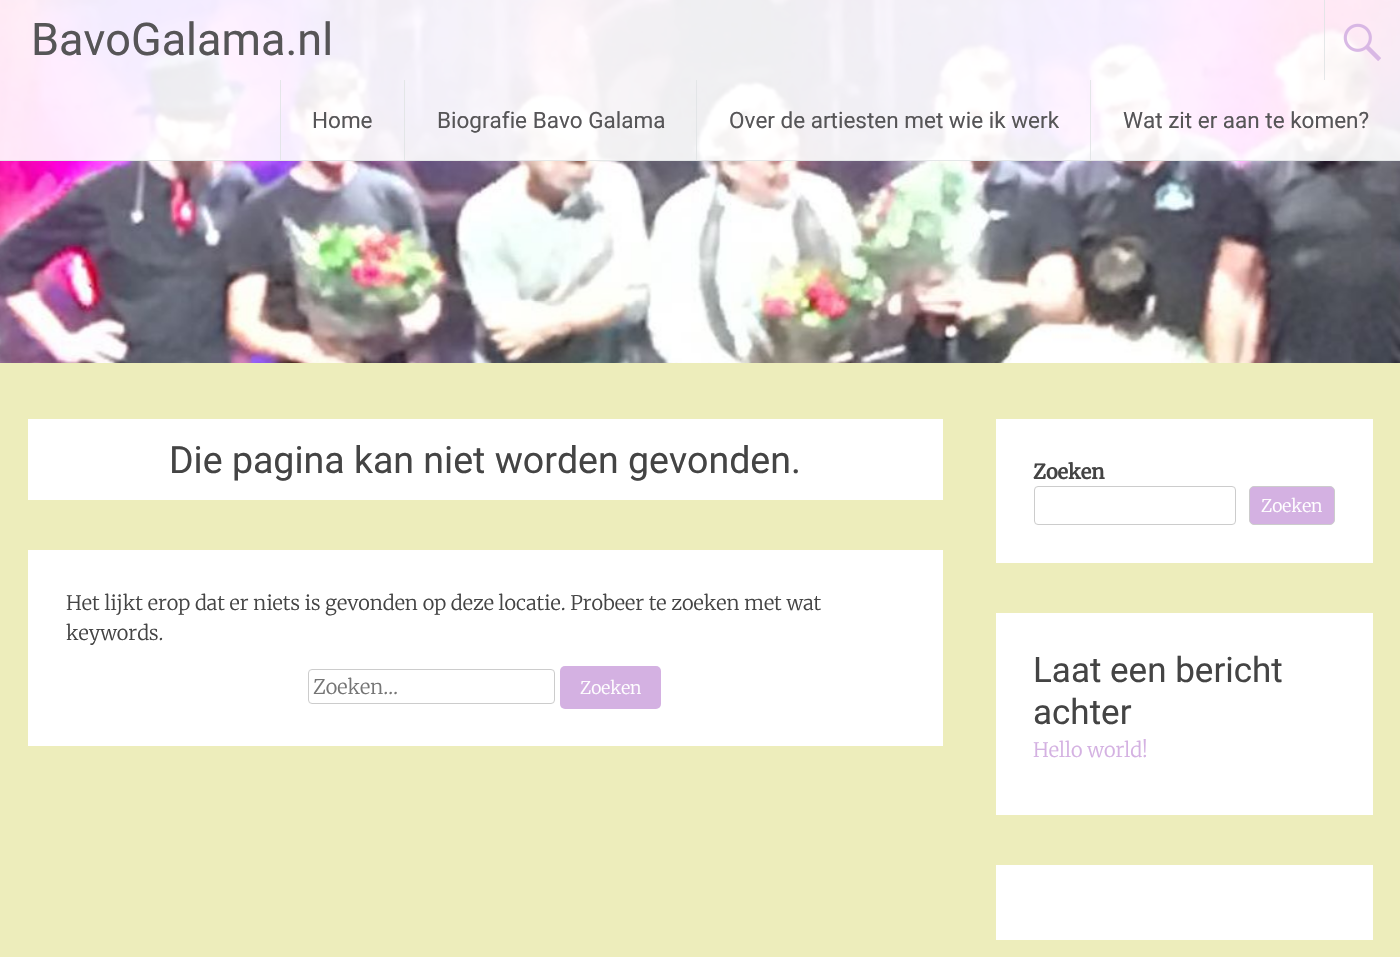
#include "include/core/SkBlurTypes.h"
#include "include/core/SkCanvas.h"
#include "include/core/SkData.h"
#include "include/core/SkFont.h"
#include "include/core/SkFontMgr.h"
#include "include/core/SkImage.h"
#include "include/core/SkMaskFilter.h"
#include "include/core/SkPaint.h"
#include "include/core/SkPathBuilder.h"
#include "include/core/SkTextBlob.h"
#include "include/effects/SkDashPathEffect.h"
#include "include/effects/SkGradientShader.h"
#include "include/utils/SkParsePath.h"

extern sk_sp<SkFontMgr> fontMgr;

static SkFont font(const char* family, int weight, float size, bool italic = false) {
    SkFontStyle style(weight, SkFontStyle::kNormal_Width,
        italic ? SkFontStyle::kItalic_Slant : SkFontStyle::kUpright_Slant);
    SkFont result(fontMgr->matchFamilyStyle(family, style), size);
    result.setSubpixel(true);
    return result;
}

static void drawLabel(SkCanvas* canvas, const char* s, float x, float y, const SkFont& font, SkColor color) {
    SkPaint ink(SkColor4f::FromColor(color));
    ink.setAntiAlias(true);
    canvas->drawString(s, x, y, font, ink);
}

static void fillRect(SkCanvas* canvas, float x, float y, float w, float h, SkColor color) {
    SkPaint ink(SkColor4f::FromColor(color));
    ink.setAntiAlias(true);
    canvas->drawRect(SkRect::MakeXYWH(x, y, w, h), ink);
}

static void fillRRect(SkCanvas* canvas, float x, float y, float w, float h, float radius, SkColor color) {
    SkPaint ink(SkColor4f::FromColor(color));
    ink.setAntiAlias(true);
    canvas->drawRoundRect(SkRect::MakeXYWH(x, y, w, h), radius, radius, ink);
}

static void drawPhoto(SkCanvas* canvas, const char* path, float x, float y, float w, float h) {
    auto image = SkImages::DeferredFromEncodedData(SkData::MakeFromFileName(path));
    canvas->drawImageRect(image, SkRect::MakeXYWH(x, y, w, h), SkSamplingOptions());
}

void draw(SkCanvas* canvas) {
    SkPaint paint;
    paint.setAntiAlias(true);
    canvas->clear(0xFFFFFFFF);
    drawPhoto(canvas, "assets/img1.png", 0, 0, 1400, 363);
    fillRect(canvas, 0, 0, 1400, 161, 0xE6FFFFFF);
    fillRect(canvas, 0, 160, 1400, 1, 0xE6E1E4E6);
    SkFont font1 = font("Roboto", 400, 45);
    drawLabel(canvas, "BavoGalama.nl", 31, 55, font1, 0xFF565557);
    fillRect(canvas, 1324, 0, 1, 80, 0xE6E1E4E6);
    drawPhoto(canvas, "assets/img2.png", 1343, 23, 38, 38);
    fillRect(canvas, 280, 80, 1, 80, 0xE6E1E4E6);
    SkFont font2 = font("Roboto", 400, 22.5f);
    drawLabel(canvas, "Home", 312, 128, font2, 0xFF565557);
    fillRect(canvas, 404, 80, 1, 80, 0xE6E1E4E6);
    drawLabel(canvas, "Biografie Bavo Galama", 437, 128, font2, 0xFF565557);
    fillRect(canvas, 696, 80, 1, 80, 0xE6E1E4E6);
    drawLabel(canvas, "Over de artiesten met wie ik werk", 729, 128, font2, 0xFF565557);
    fillRect(canvas, 1090, 80, 1, 80, 0xE6E1E4E6);
    drawLabel(canvas, "Wat zit er aan te komen?", 1123, 128, font2, 0xFF565557);
    fillRect(canvas, 0, 363, 1400, 594, 0xFFEDEDBB);
    fillRect(canvas, 28, 419, 915, 81, 0xFFFFFFFF);
    SkFont font3 = font("Roboto", 400, 37.5f);
    drawLabel(canvas, "Die pagina kan niet worden gevonden.", 169, 473, font3, 0xFF444444);
    fillRect(canvas, 28, 550, 915, 196, 0xFFFFFFFF);
    SkFont font4 = font("Merriweather", 300, 20);
    drawLabel(canvas, "Het lijkt erop dat er niets is gevonden op deze locatie. Probeer te zoeken met wat", 66, 610, font4, 0xFF444444);
    drawLabel(canvas, "keywords.", 66, 640, font4, 0xFF444444);
    paint.setStroke(true);
    paint.setStrokeWidth(1);
    paint.setColor(0xFFCCCCCC);
    canvas->drawRoundRect(SkRect::MakeXYWH(308.5f, 669.5f, 246, 34), 3.5f, 3.5f, paint);
    drawLabel(canvas, "Zoeken…", 313, 694, font4, 0xFF757575);
    fillRRect(canvas, 560, 666, 101, 43, 5, 0xFFD4B1E2);
    SkFont font5 = font("Merriweather", 300, 17.5f);
    drawLabel(canvas, "Zoeken", 580, 694, font5, 0xFFFFFFFF);
    fillRect(canvas, 996, 419, 377, 144, 0xFFFFFFFF);
    SkFont font6 = font("Merriweather", 700, 20);
    drawLabel(canvas, "Zoeken", 1033, 479, font6, 0xFF444444);
    canvas->drawRoundRect(SkRect::MakeXYWH(1034.5f, 486.5f, 201, 38), 3.5f, 3.5f, paint);
    paint.setStroke(false);
    paint.setColor(0xFFD4B1E2);
    canvas->drawRoundRect(SkRect::MakeXYWH(1249.5f, 486.5f, 85, 38), 4.5f, 4.5f, paint);
    paint.setStroke(true);
    paint.setColor(0xFFCCCCCC);
    canvas->drawRoundRect(SkRect::MakeXYWH(1249.5f, 486.5f, 85, 38), 4.5f, 4.5f, paint);
    drawLabel(canvas, "Zoeken", 1261, 512, font5, 0xFFFFFFFF);
    fillRect(canvas, 996, 613, 377, 202, 0xFFFFFFFF);
    SkFont font7 = font("Roboto", 400, 35);
    drawLabel(canvas, "Laat een bericht", 1033, 682, font7, 0xFF444444);
    drawLabel(canvas, "achter", 1033, 724, font7, 0xFF444444);
    drawLabel(canvas, "Hello world!", 1033, 757, font4, 0xFFD4B1E2);
    fillRect(canvas, 996, 865, 377, 75, 0xFFFFFFFF);
}
